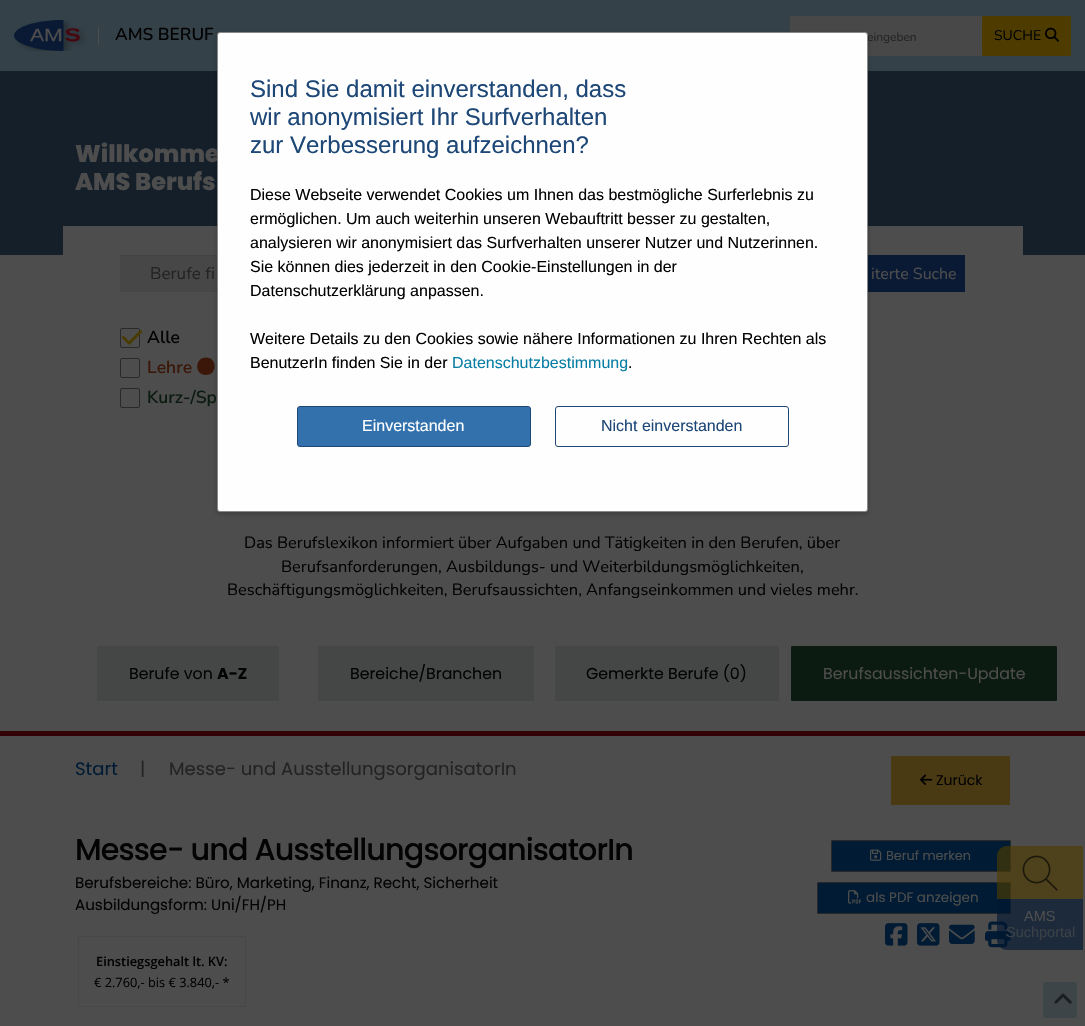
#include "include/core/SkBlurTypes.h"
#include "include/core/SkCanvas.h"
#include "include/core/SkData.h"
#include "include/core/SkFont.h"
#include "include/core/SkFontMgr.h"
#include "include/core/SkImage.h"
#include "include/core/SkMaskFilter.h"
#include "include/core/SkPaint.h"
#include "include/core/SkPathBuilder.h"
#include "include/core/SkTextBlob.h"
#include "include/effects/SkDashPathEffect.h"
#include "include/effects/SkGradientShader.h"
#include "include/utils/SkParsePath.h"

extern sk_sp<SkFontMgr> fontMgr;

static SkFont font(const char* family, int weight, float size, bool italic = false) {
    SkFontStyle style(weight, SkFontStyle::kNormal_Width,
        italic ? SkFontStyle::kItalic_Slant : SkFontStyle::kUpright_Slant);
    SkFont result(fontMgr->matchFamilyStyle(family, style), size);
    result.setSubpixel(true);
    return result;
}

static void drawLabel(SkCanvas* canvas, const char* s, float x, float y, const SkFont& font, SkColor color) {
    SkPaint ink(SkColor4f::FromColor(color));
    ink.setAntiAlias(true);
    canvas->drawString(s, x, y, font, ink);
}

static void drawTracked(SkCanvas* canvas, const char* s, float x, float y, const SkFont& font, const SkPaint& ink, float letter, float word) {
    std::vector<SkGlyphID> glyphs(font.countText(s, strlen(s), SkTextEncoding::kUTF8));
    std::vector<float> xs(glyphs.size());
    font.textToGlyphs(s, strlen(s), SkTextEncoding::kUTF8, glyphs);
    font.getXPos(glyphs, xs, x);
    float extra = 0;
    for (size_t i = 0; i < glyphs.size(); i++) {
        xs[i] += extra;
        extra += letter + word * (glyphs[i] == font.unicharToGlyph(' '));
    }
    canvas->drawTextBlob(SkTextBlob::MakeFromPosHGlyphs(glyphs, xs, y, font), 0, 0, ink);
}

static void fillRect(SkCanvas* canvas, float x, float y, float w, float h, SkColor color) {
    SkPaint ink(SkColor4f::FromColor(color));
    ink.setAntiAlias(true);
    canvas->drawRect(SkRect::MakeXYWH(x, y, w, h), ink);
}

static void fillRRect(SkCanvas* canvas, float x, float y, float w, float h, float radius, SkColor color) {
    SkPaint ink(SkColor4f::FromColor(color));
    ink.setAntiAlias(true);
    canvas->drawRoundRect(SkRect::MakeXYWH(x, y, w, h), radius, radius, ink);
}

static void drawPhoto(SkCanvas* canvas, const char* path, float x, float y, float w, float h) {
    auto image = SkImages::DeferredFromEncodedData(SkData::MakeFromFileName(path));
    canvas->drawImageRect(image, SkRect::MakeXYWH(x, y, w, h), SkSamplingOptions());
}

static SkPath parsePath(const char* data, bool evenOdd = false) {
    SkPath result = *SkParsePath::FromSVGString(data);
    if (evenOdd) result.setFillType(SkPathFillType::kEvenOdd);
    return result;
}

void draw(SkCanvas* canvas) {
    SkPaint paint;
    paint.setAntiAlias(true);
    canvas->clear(0xFF4D4D4D);
    fillRect(canvas, 0, 0, 1085, 71, 0xFF344148);
    drawPhoto(canvas, "assets/img1.png", 14, 20, 73, 31);
    fillRect(canvas, 98, 27, 1, 18, 0xFF4D4D4D);
    SkFont font1 = font("Nunito", 600, 17.25f);
    drawLabel(canvas, "AMS BERUF", 115, 40, font1, 0xFF030303);
    fillRect(canvas, 790, 16, 192, 40, 0xFF484848);
    SkFont font2 = font("Nunito", 400, 12);
    drawLabel(canvas, "eingeben", 867, 41, font2, 0xFF232323);
    fillRRect(canvas, 982, 16, 89, 40, 1, 0xFF4D3B00);
    SkFont font3 = font("Nunito", 400, 14);
    drawLabel(canvas, "SUCHE", 994, 40, font3, 0xFF030303);
    drawPhoto(canvas, "assets/img2.png", 1045, 27, 14, 15);
    fillRect(canvas, 0, 71, 1085, 184, 0xFF141F2A);
    SkFont font4 = font("Poppins", 800, 24);
    drawLabel(canvas, "Willkomme", 75, 162, font4, 0xFF4D4D4D);
    drawLabel(canvas, "AMS Berufs", 75, 190, font4, 0xFF4D4D4D);
    fillRect(canvas, 63, 226, 960, 29, 0xFF4D4D4D);
    fillRect(canvas, 120, 256, 97, 36, 0xFF474747);
    fillRect(canvas, 120, 255, 97, 1, 0xFF424242);
    fillRect(canvas, 868, 255, 97, 37, 0xFF0A1A34);
    paint.setColor(0xFF3A1708);
    canvas->drawPath(parsePath("M206 375C217.5 375 217.5 357.5 206 357.5C194.5 357.5 194 375 206 375Z"), paint);
    paint.setColor(0x33000000);
    paint.setMaskFilter(SkMaskFilter::MakeBlur(kNormal_SkBlurStyle, 2.5f));
    canvas->drawRoundRect(SkRect::MakeXYWH(217, 34, 651, 480), 3, 3, paint);
    paint.setMaskFilter(nullptr);
    paint.setColor(0xFFFEFEFE);
    canvas->drawRoundRect(SkRect::MakeXYWH(217.5f, 32.5f, 650, 479), 2.5f, 2.5f, paint);
    paint.setStroke(true);
    paint.setStrokeWidth(1);
    paint.setColor(0xFF888888);
    canvas->drawRoundRect(SkRect::MakeXYWH(217.5f, 32.5f, 650, 479), 2.5f, 2.5f, paint);
    SkFont font5 = font("Liberation Sans", 400, 24);
    drawLabel(canvas, "Sind Sie damit einverstanden, dass", 250, 97, font5, 0xFF1D4777);
    drawLabel(canvas, "wir anonymisiert Ihr Surfverhalten", 250, 125, font5, 0xFF1D4777);
    drawLabel(canvas, "zur Verbesserung aufzeichnen?", 250, 153, font5, 0xFF1D4777);
    SkFont font6 = font("Liberation Sans", 400, 16);
    drawLabel(canvas, "Diese Webseite verwendet Cookies um Ihnen das bestmögliche Surferlebnis zu", 250, 200, font6, 0xFF030303);
    drawLabel(canvas, "ermöglichen. Um auch weiterhin unseren Webauftritt besser zu gestalten,", 250, 224, font6, 0xFF030303);
    drawLabel(canvas, "analysieren wir anonymisiert das Surfverhalten unserer Nutzer und Nutzerinnen.", 250, 248, font6, 0xFF030303);
    drawLabel(canvas, "Sie können dies jederzeit in den Cookie-Einstellungen in der", 250, 272, font6, 0xFF030303);
    drawLabel(canvas, "Datenschutzerklärung anpassen.", 250, 296, font6, 0xFF030303);
    drawLabel(canvas, "Weitere Details zu den Cookies sowie nähere Informationen zu Ihren Rechten als", 250, 344, font6, 0xFF030303);
    drawLabel(canvas, "BenutzerIn finden Sie in der", 250, 368, font6, 0xFF030303);
    drawLabel(canvas, "Datenschutzbestimmung", 452, 368, font6, 0xFF097EA5);
    drawLabel(canvas, ".", 628, 368, font6, 0xFF030303);
    paint.setStroke(false);
    paint.setColor(0xFF3371AD);
    canvas->drawRoundRect(SkRect::MakeXYWH(297.5f, 406.5f, 233, 40), 2.5f, 2.5f, paint);
    paint.setStroke(true);
    paint.setColor(0xFF1D4777);
    canvas->drawRoundRect(SkRect::MakeXYWH(297.5f, 406.5f, 233, 40), 2.5f, 2.5f, paint);
    drawLabel(canvas, "Einverstanden", 362, 431, font6, 0xFFFFFFFF);
    canvas->drawRoundRect(SkRect::MakeXYWH(555.5f, 406.5f, 233, 40), 2.5f, 2.5f, paint);
    drawLabel(canvas, "Nicht einverstanden", 601, 431, font6, 0xFF1D4777);
    SkFont font7 = font("Nunito", 400, 17);
    drawLabel(canvas, "Berufe fi", 150, 279, font7, 0xFF232323);
    SkFont font8 = font("Nunito", 400, 16);
    drawLabel(canvas, "iterte Suche", 871, 279, font8, 0xFF4D4D4D);
    paint.setColor(0xFF292929);
    canvas->drawRoundRect(SkRect::MakeXYWH(120.5f, 328.5f, 19, 19), 1.5f, 1.5f, paint);
    drawPhoto(canvas, "assets/img3.png", 122, 330, 20, 15);
    SkFont font9 = font("Nunito Sans", 600, 17.5f);
    drawLabel(canvas, "Alle", 147, 343, font9, 0xFF030303);
    canvas->drawRoundRect(SkRect::MakeXYWH(120.5f, 358.5f, 19, 19), 1.5f, 1.5f, paint);
    drawLabel(canvas, "Lehre", 147, 373, font9, 0xFF3A1708);
    canvas->drawRoundRect(SkRect::MakeXYWH(120.5f, 388.5f, 19, 19), 1.5f, 1.5f, paint);
    drawLabel(canvas, "Kurz-/Sp", 147, 403, font9, 0xFF0C1B11);
    SkFont font10 = font("Nunito", 400, 16.4f);
    drawLabel(canvas, "Das Berufslexikon informiert über Aufgaben und Tätigkeiten in den Berufen, über", 244, 548, font10, 0xFF030303);
    drawLabel(canvas, "Berufsanforderungen, Ausbildungs- und Weiterbildungsmöglichkeiten,", 281, 572, font10, 0xFF030303);
    drawLabel(canvas, "Beschäftigungsmöglichkeiten, Berufsaussichten, Anfangseinkommen und vieles mehr.", 227, 595, font10, 0xFF030303);
    fillRRect(canvas, 97, 646, 182, 55, 1, 0xFF454747);
    SkFont font11 = font("Poppins", 400, 15.8f);
    drawLabel(canvas, "Berufe von", 129, 679, font11, 0xFF030303);
    SkFont font12 = font("Poppins", 700, 15.8f);
    drawLabel(canvas, "A-Z", 217, 679, font12, 0xFF030303);
    fillRRect(canvas, 318, 646, 216, 55, 1, 0xFF454747);
    drawLabel(canvas, "Bereiche/Branchen", 350, 679, font11, 0xFF030303);
    fillRRect(canvas, 555, 646, 224, 55, 1, 0xFF454747);
    drawLabel(canvas, "Gemerkte Berufe (0)", 586, 679, font11, 0xFF030303);
    fillRRect(canvas, 791, 646, 266, 55, 1, 0xFF0C1B11);
    drawLabel(canvas, "Berufsaussichten-Update", 823, 679, font11, 0xFF4D4D4D);
    fillRect(canvas, 0, 731, 1085, 5, 0xFF320006);
    SkFont font13 = font("Poppins", 400, 18.1f);
    drawLabel(canvas, "Start", 75, 775, font13, 0xFF001B33);
    drawLabel(canvas, "|", 140, 775, font13, 0xFF232323);
    drawLabel(canvas, "Messe- und AusstellungsorganisatorIn", 169, 775, font13, 0xFF232323);
    fillRect(canvas, 891, 756, 119, 49, 0xFF4A3A13);
    drawPhoto(canvas, "assets/img4.png", 920, 774, 13, 11);
    SkFont font14 = font("Poppins", 400, 14);
    drawLabel(canvas, "Zurück", 936, 785, font14, 0xFF030303);
    SkFont font15 = font("Poppins", 500, 30.25f);
    paint.setStroke(false);
    paint.setColor(0xFF030303);
    drawTracked(canvas, "Messe- und AusstellungsorganisatorIn", 75, 860, font15, paint, -0.9f, 0);
    SkFont font16 = font("Poppins", 400, 15.1f);
    drawLabel(canvas, "Berufsbereiche: Büro, Marketing, Finanz, Recht, Sicherheit", 75, 888, font16, 0xFF030303);
    drawLabel(canvas, "Ausbildungsform: Uni/FH/PH", 75, 910, font16, 0xFF030303);
    paint.setStroke(true);
    paint.setColor(0xFF454748);
    canvas->drawRect(SkRect::MakeXYWH(78.5f, 936.5f, 167, 70), paint);
    SkFont font17 = font("Open Sans", 600, 12.8f);
    drawLabel(canvas, "Einstiegsgehalt lt. KV:", 96, 966, font17, 0xFF030303);
    SkFont font18 = font("Open Sans", 400, 12.8f);
    drawLabel(canvas, "€ 2.760,- bis € 3.840,- *", 94, 987, font18, 0xFF030303);
    paint.setStroke(false);
    paint.setColor(0xFF001B33);
    canvas->drawRoundRect(SkRect::MakeXYWH(831.5f, 840.5f, 179, 31), 0.5f, 0.5f, paint);
    paint.setStroke(true);
    paint.setColor(0xFF292929);
    canvas->drawRoundRect(SkRect::MakeXYWH(831.5f, 840.5f, 179, 31), 0.5f, 0.5f, paint);
    drawPhoto(canvas, "assets/img5.png", 870, 849, 12, 12);
    SkFont font19 = font("Poppins", 400, 12.8f);
    drawLabel(canvas, "Beruf merken", 886, 860, font19, 0xFF4D4D4D);
    paint.setStroke(false);
    paint.setColor(0xFF001B33);
    canvas->drawRoundRect(SkRect::MakeXYWH(817.5f, 882.5f, 193, 31), 0.5f, 0.5f, paint);
    paint.setStroke(true);
    paint.setColor(0xFF292929);
    canvas->drawRoundRect(SkRect::MakeXYWH(817.5f, 882.5f, 193, 31), 0.5f, 0.5f, paint);
    drawPhoto(canvas, "assets/img6.png", 848, 890, 14, 14);
    SkFont font20 = font("Poppins", 400, 13.5f);
    drawLabel(canvas, "als PDF anzeigen", 866, 902, font20, 0xFF4D4D4D);
    drawPhoto(canvas, "assets/img7.png", 885, 923, 23, 23);
    drawPhoto(canvas, "assets/img8.png", 917, 923, 23, 23);
    drawPhoto(canvas, "assets/img9.png", 949, 924, 26, 20);
    drawPhoto(canvas, "assets/img10.png", 985, 921, 26, 27);
    paint.setStroke(false);
    paint.setColor(0xA34D3B00);
    canvas->drawPath(parsePath("M1007 846H1083V899H997V856C997 850.5 1001.5 846 1007 846Z"), paint);
    drawPhoto(canvas, "assets/img11.png", 1022, 855, 36, 36);
    paint.setColor(0xA3001630);
    canvas->drawPath(parsePath("M997 899H1083V950H1007C1001.5 950 997 945.5 997 940Z"), paint);
    SkFont font21 = font("Liberation Sans", 400, 14.5f);
    drawLabel(canvas, "AMS", 1024, 921, font21, 0xFF4D4D4D);
    drawLabel(canvas, "Suchportal", 1006, 937, font21, 0xFF3A4046);
    fillRRect(canvas, 1043, 982, 34, 36, 3, 0xFF3D4549);
    drawPhoto(canvas, "assets/img12.png", 1054, 993, 18, 11);
}
